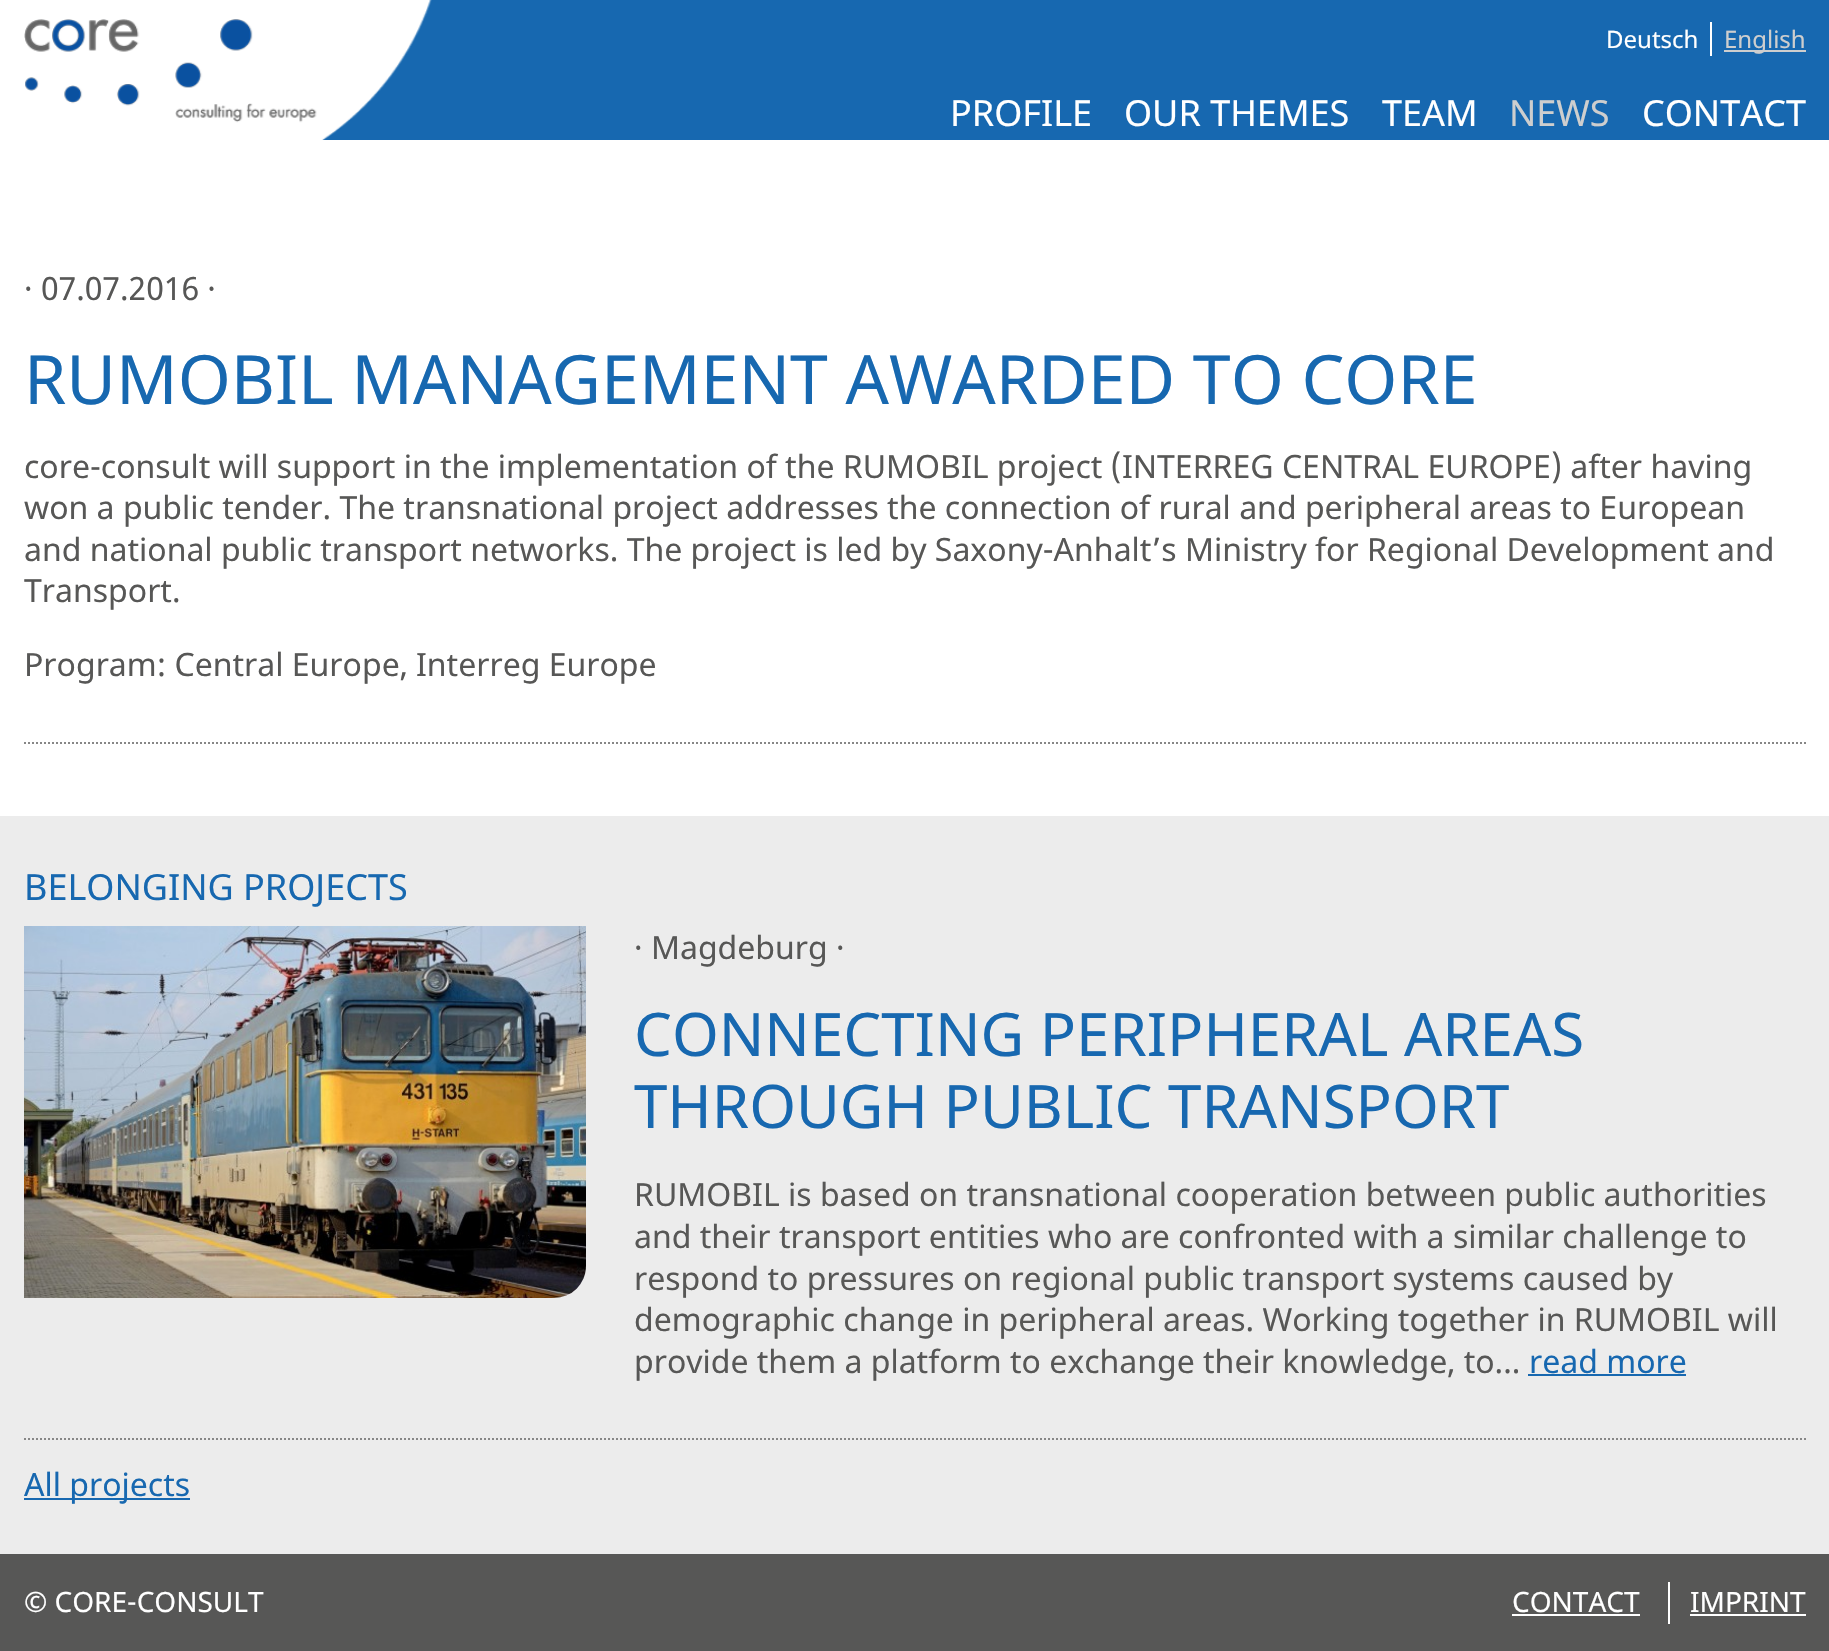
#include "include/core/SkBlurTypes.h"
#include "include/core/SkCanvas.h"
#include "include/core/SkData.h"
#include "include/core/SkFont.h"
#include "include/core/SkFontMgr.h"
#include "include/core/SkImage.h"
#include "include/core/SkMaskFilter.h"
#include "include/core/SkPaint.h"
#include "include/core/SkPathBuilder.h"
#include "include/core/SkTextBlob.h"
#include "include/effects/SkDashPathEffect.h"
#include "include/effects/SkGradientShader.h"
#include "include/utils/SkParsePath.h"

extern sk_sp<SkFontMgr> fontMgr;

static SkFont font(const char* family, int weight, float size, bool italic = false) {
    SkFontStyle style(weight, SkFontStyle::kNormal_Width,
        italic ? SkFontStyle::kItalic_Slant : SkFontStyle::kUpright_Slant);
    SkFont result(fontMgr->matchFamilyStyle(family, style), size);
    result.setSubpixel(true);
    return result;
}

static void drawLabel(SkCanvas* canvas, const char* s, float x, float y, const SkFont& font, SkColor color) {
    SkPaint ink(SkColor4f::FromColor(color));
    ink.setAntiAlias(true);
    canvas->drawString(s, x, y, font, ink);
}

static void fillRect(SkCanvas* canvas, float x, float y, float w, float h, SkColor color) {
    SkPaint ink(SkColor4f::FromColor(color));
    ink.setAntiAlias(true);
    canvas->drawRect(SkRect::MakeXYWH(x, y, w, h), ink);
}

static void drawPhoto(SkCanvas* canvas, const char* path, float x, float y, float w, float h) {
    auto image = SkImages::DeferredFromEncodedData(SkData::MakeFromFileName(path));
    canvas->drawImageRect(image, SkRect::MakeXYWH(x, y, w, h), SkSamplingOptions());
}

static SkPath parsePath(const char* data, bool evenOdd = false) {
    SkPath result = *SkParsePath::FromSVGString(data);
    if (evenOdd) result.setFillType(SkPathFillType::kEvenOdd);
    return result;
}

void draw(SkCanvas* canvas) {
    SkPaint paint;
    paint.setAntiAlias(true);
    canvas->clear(0xFFFFFFFF);
    fillRect(canvas, 324, 0, 1505, 140, 0xFF1768B0);
    drawPhoto(canvas, "assets/img1.png", 24, 0, 408, 140);
    SkFont font1 = font("Noto Sans", 400, 24);
    drawLabel(canvas, "Deutsch", 1606, 48, font1, 0xFFFFFFFF);
    fillRect(canvas, 1710, 22, 2, 34, 0xFFFFFFFF);
    fillRect(canvas, 1724, 50, 82, 2, 0xFFCECECE);
    drawLabel(canvas, "English", 1724, 48, font1, 0xFFCECECE);
    SkFont font2 = font("Noto Sans", 400, 36);
    drawLabel(canvas, "PROFILE", 950, 126, font2, 0xFFFFFFFF);
    drawLabel(canvas, "OUR THEMES", 1124, 126, font2, 0xFFFFFFFF);
    drawLabel(canvas, "TEAM", 1382, 126, font2, 0xFFFFFFFF);
    drawLabel(canvas, "NEWS", 1509, 126, font2, 0xFFCECECE);
    drawLabel(canvas, "CONTACT", 1642, 126, font2, 0xFFFFFFFF);
    SkFont font3 = font("Noto Sans", 400, 32);
    drawLabel(canvas, "· 07.07.2016 ·", 24, 300, font3, 0xFF575756);
    SkFont font4 = font("Noto Sans", 400, 68);
    drawLabel(canvas, "RUMOBIL MANAGEMENT AWARDED TO CORE", 24, 404, font4, 0xFF1768B0);
    drawLabel(canvas, "core-consult will support in the implementation of the RUMOBIL project (INTERREG CENTRAL EUROPE) after having", 24, 478, font3, 0xFF575756);
    drawLabel(canvas, "won a public tender. The transnational project addresses the connection of rural and peripheral areas to European", 24, 519, font3, 0xFF575756);
    drawLabel(canvas, "and national public transport networks. The project is led by Saxony-Anhalt’s Ministry for Regional Development and", 24, 561, font3, 0xFF575756);
    drawLabel(canvas, "Transport.", 24, 602, font3, 0xFF575756);
    drawLabel(canvas, "Program: Central Europe, Interreg Europe", 24, 676, font3, 0xFF575756);
    paint.setStroke(true);
    paint.setStrokeWidth(2);
    paint.setColor(0xFF878787);
    paint.setPathEffect(SkDashPathEffect::Make({{2, 2}}, 0));
    canvas->drawPath(parsePath("M24 743H1806"), paint);
    paint.setPathEffect(nullptr);
    fillRect(canvas, 0, 816, 1829, 738, 0xFFECECEC);
    drawLabel(canvas, "BELONGING PROJECTS", 24, 900, font2, 0xFF1768B0);
    drawPhoto(canvas, "assets/img2.png", 24, 926, 562, 372);
    drawLabel(canvas, "· Magdeburg ·", 634, 959, font3, 0xFF575756);
    SkFont font5 = font("Noto Sans", 400, 60);
    drawLabel(canvas, "CONNECTING PERIPHERAL AREAS", 634, 1056, font5, 0xFF1768B0);
    drawLabel(canvas, "THROUGH PUBLIC TRANSPORT", 634, 1128, font5, 0xFF1768B0);
    drawLabel(canvas, "RUMOBIL is based on transnational cooperation between public authorities", 634, 1206, font3, 0xFF575756);
    drawLabel(canvas, "and their transport entities who are confronted with a similar challenge to", 634, 1248, font3, 0xFF575756);
    drawLabel(canvas, "respond to pressures on regional public transport systems caused by", 634, 1290, font3, 0xFF575756);
    drawLabel(canvas, "demographic change in peripheral areas. Working together in RUMOBIL will", 634, 1331, font3, 0xFF575756);
    drawLabel(canvas, "provide them a platform to exchange their knowledge, to...", 634, 1373, font3, 0xFF575756);
    drawLabel(canvas, "read more", 1529, 1373, font3, 0xFF1768B0);
    fillRect(canvas, 1528, 1374, 158, 2, 0xFF1768B0);
    paint.setPathEffect(SkDashPathEffect::Make({{2, 2}}, 0));
    canvas->drawPath(parsePath("M24 1439H1806"), paint);
    paint.setPathEffect(nullptr);
    fillRect(canvas, 24, 1498, 166, 2, 0xFF1768B0);
    drawLabel(canvas, "All projects", 24, 1496, font3, 0xFF1768B0);
    fillRect(canvas, 0, 1554, 1829, 97, 0xFF575756);
    SkFont font6 = font("Noto Sans", 400, 28);
    drawLabel(canvas, "© CORE-CONSULT", 24, 1612, font6, 0xFFFFFFFF);
    fillRect(canvas, 1668, 1582, 2, 42, 0xFFFFFFFF);
    drawLabel(canvas, "CONTACT", 1512, 1612, font6, 0xFFFFFFFF);
    fillRect(canvas, 1512, 1614, 128, 2, 0xFFFFFFFF);
    drawLabel(canvas, "IMPRINT", 1690, 1612, font6, 0xFFFFFFFF);
    fillRect(canvas, 1690, 1614, 116, 2, 0xFFFFFFFF);
}
